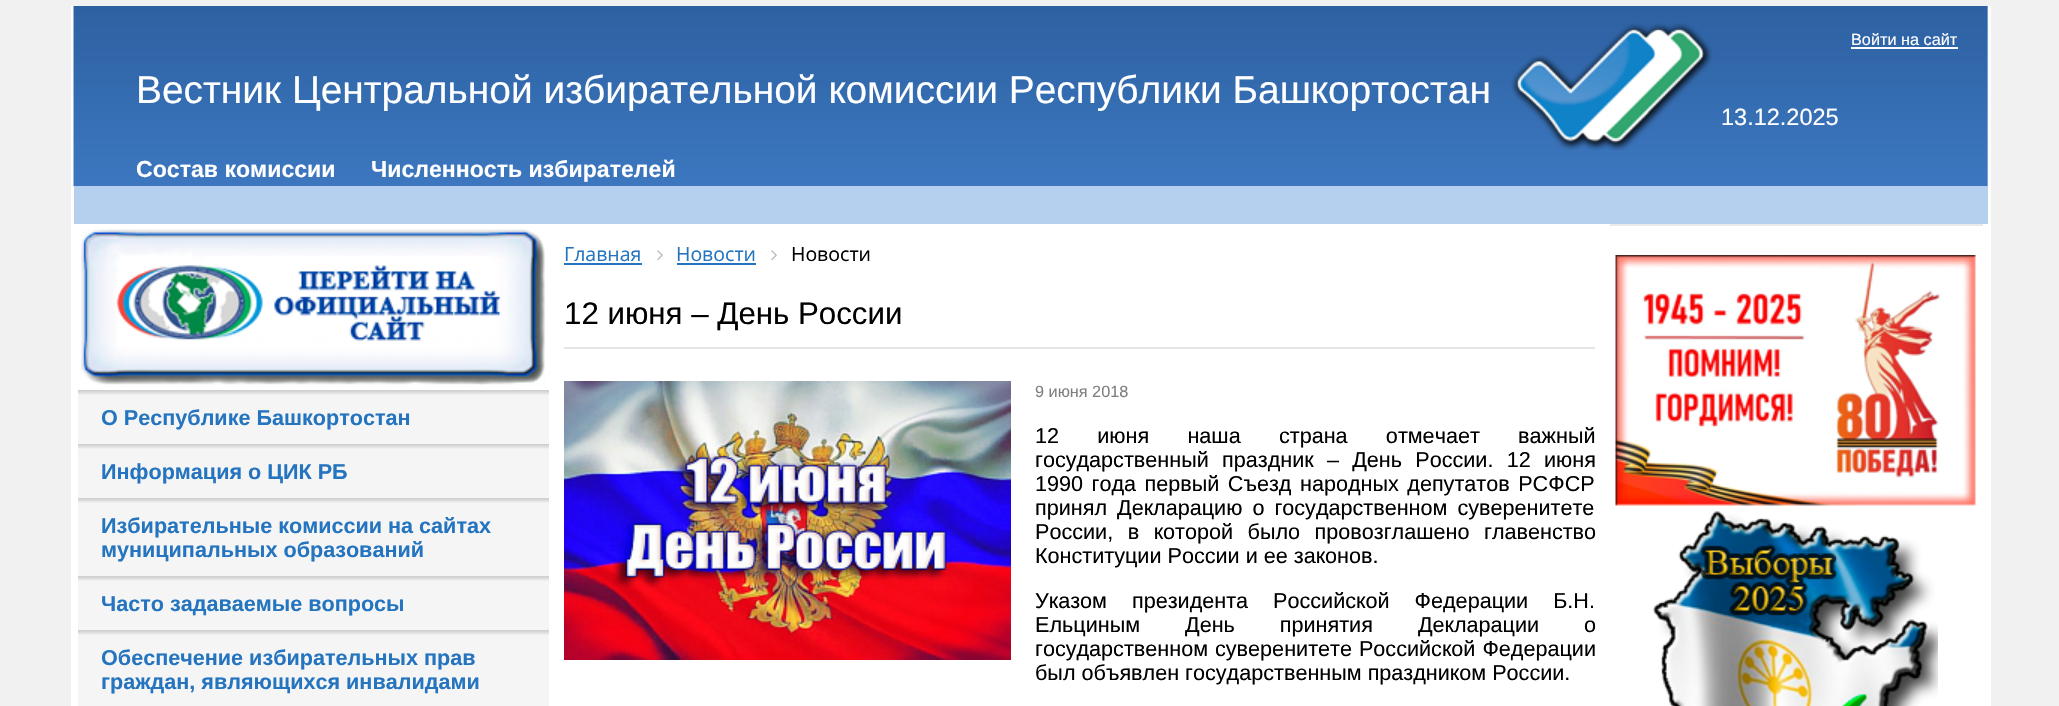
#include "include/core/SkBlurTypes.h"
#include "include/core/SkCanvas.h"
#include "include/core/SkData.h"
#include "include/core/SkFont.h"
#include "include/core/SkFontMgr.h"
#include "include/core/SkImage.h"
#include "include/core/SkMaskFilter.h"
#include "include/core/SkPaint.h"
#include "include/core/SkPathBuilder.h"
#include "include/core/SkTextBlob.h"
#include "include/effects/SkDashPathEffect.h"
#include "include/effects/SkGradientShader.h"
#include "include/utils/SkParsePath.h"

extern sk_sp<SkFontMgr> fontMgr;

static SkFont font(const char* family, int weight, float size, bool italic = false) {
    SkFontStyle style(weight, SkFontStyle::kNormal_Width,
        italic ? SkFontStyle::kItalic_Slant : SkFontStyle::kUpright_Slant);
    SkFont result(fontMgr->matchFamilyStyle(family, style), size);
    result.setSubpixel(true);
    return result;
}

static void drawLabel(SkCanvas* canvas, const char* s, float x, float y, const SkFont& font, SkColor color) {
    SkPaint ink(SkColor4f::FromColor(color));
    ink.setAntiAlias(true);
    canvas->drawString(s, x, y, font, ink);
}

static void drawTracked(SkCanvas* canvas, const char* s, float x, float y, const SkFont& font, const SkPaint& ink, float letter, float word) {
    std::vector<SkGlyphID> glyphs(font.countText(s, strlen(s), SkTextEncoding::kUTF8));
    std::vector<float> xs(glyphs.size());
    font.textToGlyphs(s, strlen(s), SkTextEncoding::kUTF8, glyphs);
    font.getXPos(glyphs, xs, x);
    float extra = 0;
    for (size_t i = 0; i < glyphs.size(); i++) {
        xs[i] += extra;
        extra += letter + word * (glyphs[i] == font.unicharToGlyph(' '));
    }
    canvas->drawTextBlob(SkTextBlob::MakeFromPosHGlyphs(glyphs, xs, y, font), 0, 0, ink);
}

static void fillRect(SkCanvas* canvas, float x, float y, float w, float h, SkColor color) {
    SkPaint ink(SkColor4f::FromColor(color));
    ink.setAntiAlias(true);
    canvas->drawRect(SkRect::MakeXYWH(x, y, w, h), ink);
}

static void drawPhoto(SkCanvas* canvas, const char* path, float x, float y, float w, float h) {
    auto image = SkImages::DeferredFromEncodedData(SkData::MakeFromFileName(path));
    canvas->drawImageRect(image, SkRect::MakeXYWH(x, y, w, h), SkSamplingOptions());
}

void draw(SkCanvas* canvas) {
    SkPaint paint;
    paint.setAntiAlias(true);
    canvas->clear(0xFFF1F1F1);
    fillRect(canvas, 71, 6, 1920, 700, 0xFFFFFFFF);
    fillRect(canvas, 74, 6, 1914, 218, 0xFFB5CFEE);
    drawPhoto(canvas, "assets/img1.png", 73, 6, 1915, 180);
    SkFont font1 = font("Liberation Sans", 400, 16.25f);
    drawLabel(canvas, "Войти на сайт", 1851, 45, font1, 0xFFFFFFFF);
    fillRect(canvas, 1851, 47, 107, 2, 0xFFFFFFFF);
    SkFont font2 = font("Liberation Sans", 400, 38.9f);
    drawLabel(canvas, "Вестник Центральной избирательной комиссии Республики Башкортостан", 136, 103, font2, 0xFFFFFFFF);
    drawPhoto(canvas, "assets/img2.png", 1511, 23, 202, 128);
    SkFont font3 = font("Liberation Sans", 400, 23.5f);
    drawLabel(canvas, "13.12.2025", 1721, 125, font3, 0xFFFFFFFF);
    SkFont font4 = font("Liberation Sans", 700, 23.1f);
    drawLabel(canvas, "Состав комиссии", 136, 177, font4, 0xFFFFFFFF);
    drawLabel(canvas, "Численность избирателей", 371, 177, font4, 0xFFFFFFFF);
    drawPhoto(canvas, "assets/img3.png", 81, 229, 465, 157);
    fillRect(canvas, 78, 394, 471, 50, 0xFFF5F5F5);
    drawPhoto(canvas, "assets/img4.png", 78, 390, 471, 5);
    SkFont font5 = font("Liberation Sans", 700, 21.6f);
    drawLabel(canvas, "О Республике Башкортостан", 101, 425, font5, 0xFF2474BF);
    fillRect(canvas, 78, 448, 471, 50, 0xFFF5F5F5);
    drawPhoto(canvas, "assets/img4.png", 78, 444, 471, 5);
    drawLabel(canvas, "Информация о ЦИК РБ", 101, 479, font5, 0xFF2474BF);
    fillRect(canvas, 78, 502, 471, 74, 0xFFF5F5F5);
    drawPhoto(canvas, "assets/img4.png", 78, 498, 471, 5);
    drawLabel(canvas, "Избирательные комиссии на сайтах", 101, 533, font5, 0xFF2474BF);
    drawLabel(canvas, "муниципальных образований", 101, 557, font5, 0xFF2474BF);
    fillRect(canvas, 78, 580, 471, 50, 0xFFF5F5F5);
    drawPhoto(canvas, "assets/img4.png", 78, 576, 471, 5);
    drawLabel(canvas, "Часто задаваемые вопросы", 101, 611, font5, 0xFF2474BF);
    fillRect(canvas, 78, 634, 471, 72, 0xFFF5F5F5);
    drawPhoto(canvas, "assets/img4.png", 78, 630, 471, 5);
    drawLabel(canvas, "Обеспечение избирательных прав", 101, 665, font5, 0xFF2474BF);
    drawLabel(canvas, "граждан, являющихся инвалидами", 101, 689, font5, 0xFF2474BF);
    SkFont font6 = font("Open Sans", 400, 19.5f);
    drawLabel(canvas, "Главная", 564, 261, font6, 0xFF2474BF);
    fillRect(canvas, 564, 263, 78, 2, 0xFF2474BF);
    drawPhoto(canvas, "assets/img5.png", 657, 250, 6, 11);
    drawLabel(canvas, "Новости", 676, 261, font6, 0xFF2474BF);
    fillRect(canvas, 677, 263, 79, 2, 0xFF2474BF);
    drawPhoto(canvas, "assets/img5.png", 771, 250, 6, 11);
    drawLabel(canvas, "Новости", 791, 261, font6, 0xFF000000);
    fillRect(canvas, 564, 347, 1031, 2, 0xFFE5E5E5);
    SkFont font7 = font("Liberation Sans", 400, 31.25f);
    drawLabel(canvas, "12 июня – День России", 564, 324, font7, 0xFF000000);
    drawPhoto(canvas, "assets/img6.png", 564, 381, 447, 279);
    drawLabel(canvas, "9 июня 2018", 1035, 397, font1, 0xFF7F7F7F);
    SkFont font8 = font("Liberation Sans", 400, 21.6f);
    paint.setColor(0xFF000000);
    drawTracked(canvas, "12 июня наша страна отмечает важный", 1035, 443, font8, paint, 0, 32.25f);
    drawTracked(canvas, "государственный праздник – День России. 12 июня", 1035, 467, font8, paint, 0, 7.25f);
    drawTracked(canvas, "1990 года первый Съезд народных депутатов РСФСР", 1035, 491, font8, paint, 0, 2.5f);
    drawTracked(canvas, "принял Декларацию о государственном суверенитете", 1035, 515, font8, paint, 0, 4);
    drawTracked(canvas, "России, в которой было провозглашено главенство", 1035, 539, font8, paint, 0, 8.5f);
    drawLabel(canvas, "Конституции России и ее законов.", 1035, 563, font8, 0xFF000000);
    drawTracked(canvas, "Указом президента Российской Федерации Б.Н.", 1035, 608, font8, paint, 0, 19);
    drawTracked(canvas, "Ельциным День принятия Декларации о", 1035, 632, font8, paint, 0, 39);
    drawTracked(canvas, "государственном суверенитете Российской Федерации", 1035, 656, font8, paint, 0, 1);
    drawLabel(canvas, "был объявлен государственным праздником России.", 1035, 680, font8, 0xFF000000);
    fillRect(canvas, 1610, 224, 373, 2, 0xFFE9E9E9);
    drawPhoto(canvas, "assets/img7.png", 1615, 255, 361, 251);
    drawPhoto(canvas, "assets/img8.png", 1653, 511, 285, 195);
}
